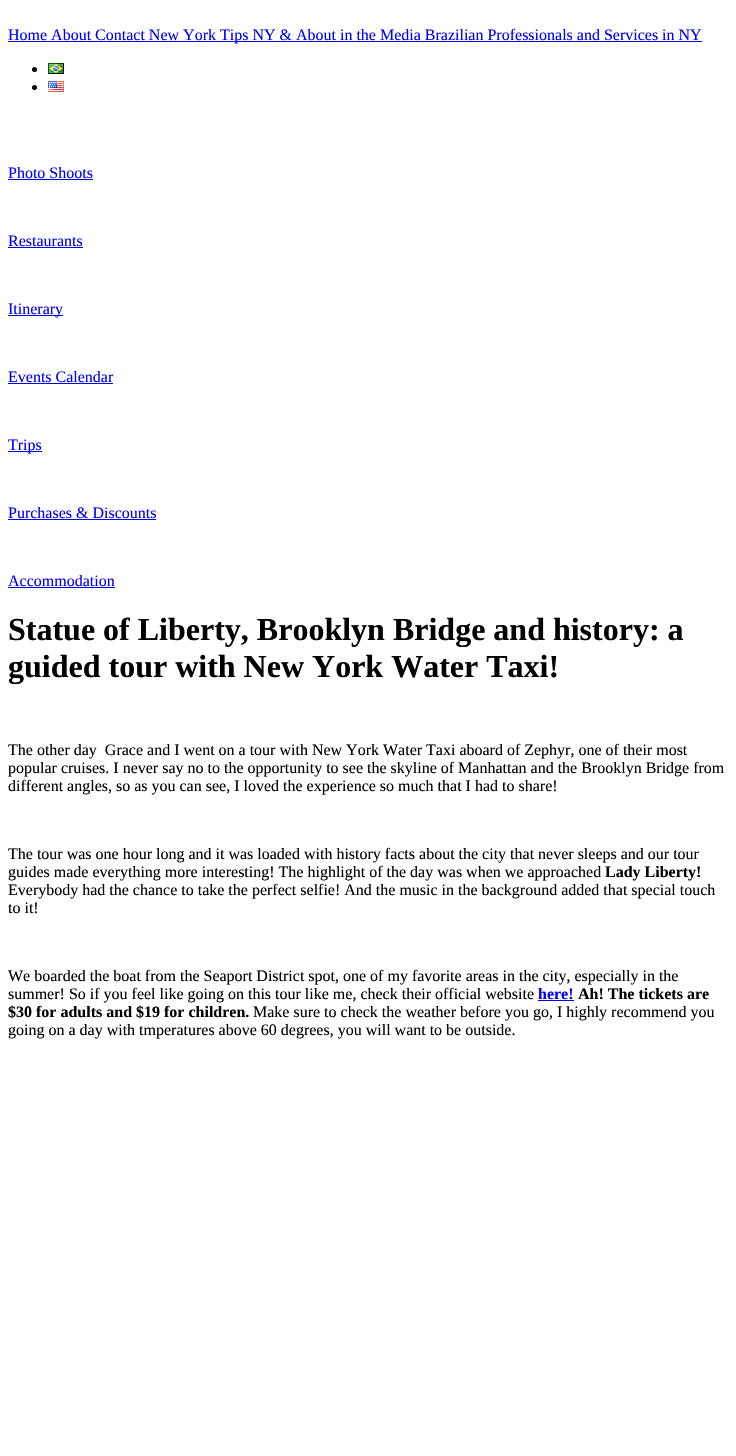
#include "include/core/SkBlurTypes.h"
#include "include/core/SkCanvas.h"
#include "include/core/SkData.h"
#include "include/core/SkFont.h"
#include "include/core/SkFontMgr.h"
#include "include/core/SkImage.h"
#include "include/core/SkMaskFilter.h"
#include "include/core/SkPaint.h"
#include "include/core/SkPathBuilder.h"
#include "include/core/SkTextBlob.h"
#include "include/effects/SkDashPathEffect.h"
#include "include/effects/SkGradientShader.h"
#include "include/utils/SkParsePath.h"

extern sk_sp<SkFontMgr> fontMgr;

static SkFont font(const char* family, int weight, float size, bool italic = false) {
    SkFontStyle style(weight, SkFontStyle::kNormal_Width,
        italic ? SkFontStyle::kItalic_Slant : SkFontStyle::kUpright_Slant);
    SkFont result(fontMgr->matchFamilyStyle(family, style), size);
    result.setSubpixel(true);
    return result;
}

static void drawLabel(SkCanvas* canvas, const char* s, float x, float y, const SkFont& font, SkColor color) {
    SkPaint ink(SkColor4f::FromColor(color));
    ink.setAntiAlias(true);
    canvas->drawString(s, x, y, font, ink);
}

static void fillRect(SkCanvas* canvas, float x, float y, float w, float h, SkColor color) {
    SkPaint ink(SkColor4f::FromColor(color));
    ink.setAntiAlias(true);
    canvas->drawRect(SkRect::MakeXYWH(x, y, w, h), ink);
}

static void drawPhoto(SkCanvas* canvas, const char* path, float x, float y, float w, float h) {
    auto image = SkImages::DeferredFromEncodedData(SkData::MakeFromFileName(path));
    canvas->drawImageRect(image, SkRect::MakeXYWH(x, y, w, h), SkSamplingOptions());
}

void draw(SkCanvas* canvas) {
    SkPaint paint;
    paint.setAntiAlias(true);
    canvas->clear(0xFFFFFFFF);
    fillRect(canvas, 8, 41, 694, 1, 0xFF0000EE);
    SkFont font1 = font("Liberation Serif", 400, 16);
    drawLabel(canvas, "Home About Contact New York Tips NY & About in the Media Brazilian Professionals and Services in NY", 8, 40, font1, 0xFF0000EE);
    paint.setColor(0xFF000000);
    canvas->drawCircle(34.5f, 69.5f, 2.5f, paint);
    drawPhoto(canvas, "assets/img1.png", 48, 63, 16, 11);
    canvas->drawCircle(34.5f, 87.5f, 2.5f, paint);
    drawPhoto(canvas, "assets/img2.png", 48, 81, 16, 11);
    drawLabel(canvas, "Photo Shoots", 8, 178, font1, 0xFF0000EE);
    fillRect(canvas, 8, 179, 85, 1, 0xFF0000EE);
    drawLabel(canvas, "Restaurants", 8, 246, font1, 0xFF0000EE);
    fillRect(canvas, 8, 247, 75, 1, 0xFF0000EE);
    fillRect(canvas, 8, 315, 55, 1, 0xFF0000EE);
    drawLabel(canvas, "Itinerary", 8, 314, font1, 0xFF0000EE);
    drawLabel(canvas, "Events Calendar", 8, 382, font1, 0xFF0000EE);
    fillRect(canvas, 8, 383, 105, 1, 0xFF0000EE);
    fillRect(canvas, 8, 451, 34, 1, 0xFF0000EE);
    drawLabel(canvas, "Trips", 8, 450, font1, 0xFF0000EE);
    drawLabel(canvas, "Purchases & Discounts", 8, 518, font1, 0xFF0000EE);
    fillRect(canvas, 8, 519, 148, 1, 0xFF0000EE);
    drawLabel(canvas, "Accommodation", 8, 586, font1, 0xFF0000EE);
    fillRect(canvas, 8, 587, 107, 1, 0xFF0000EE);
    SkFont font2 = font("Liberation Serif", 700, 32);
    drawLabel(canvas, "Statue of Liberty, Brooklyn Bridge and history: a", 8, 640, font2, 0xFF000000);
    drawLabel(canvas, "guided tour with New York Water Taxi!", 8, 677, font2, 0xFF000000);
    drawLabel(canvas, "The other day  Grace and I went on a tour with New York Water Taxi aboard of Zephyr, one of their most", 8, 755, font1, 0xFF000000);
    drawLabel(canvas, "popular cruises. I never say no to the opportunity to see the skyline of Manhattan and the Brooklyn Bridge from", 8, 773, font1, 0xFF000000);
    drawLabel(canvas, "different angles, so as you can see, I loved the experience so much that I had to share!", 8, 791, font1, 0xFF000000);
    drawLabel(canvas, "The tour was one hour long and it was loaded with history facts about the city that never sleeps and our tour", 8, 859, font1, 0xFF000000);
    drawLabel(canvas, "guides made everything more interesting! The highlight of the day was when we approached", 8, 877, font1, 0xFF000000);
    SkFont font3 = font("Liberation Serif", 700, 16);
    drawLabel(canvas, "Lady Liberty!", 605, 877, font3, 0xFF000000);
    drawLabel(canvas, "Everybody had the chance to take the perfect selfie! And the music in the background added that special touch", 8, 895, font1, 0xFF000000);
    drawLabel(canvas, "to it!", 8, 913, font1, 0xFF000000);
    drawLabel(canvas, "We boarded the boat from the Seaport District spot, one of my favorite areas in the city, especially in the", 8, 981, font1, 0xFF000000);
    drawLabel(canvas, "summer! So if you feel like going on this tour like me, check their official website", 8, 999, font1, 0xFF000000);
    drawLabel(canvas, "here!", 538, 999, font3, 0xFF0000EE);
    fillRect(canvas, 538, 1000, 36, 1, 0xFF0000EE);
    drawLabel(canvas, "Ah! The tickets are", 578, 999, font3, 0xFF000000);
    drawLabel(canvas, "$30 for adults and $19 for children.", 8, 1017, font3, 0xFF000000);
    drawLabel(canvas, "Make sure to check the weather before you go, I highly recommend you", 253, 1017, font1, 0xFF000000);
    drawLabel(canvas, "going on a day with tmperatures above 60 degrees, you will want to be outside.", 8, 1035, font1, 0xFF000000);
}
